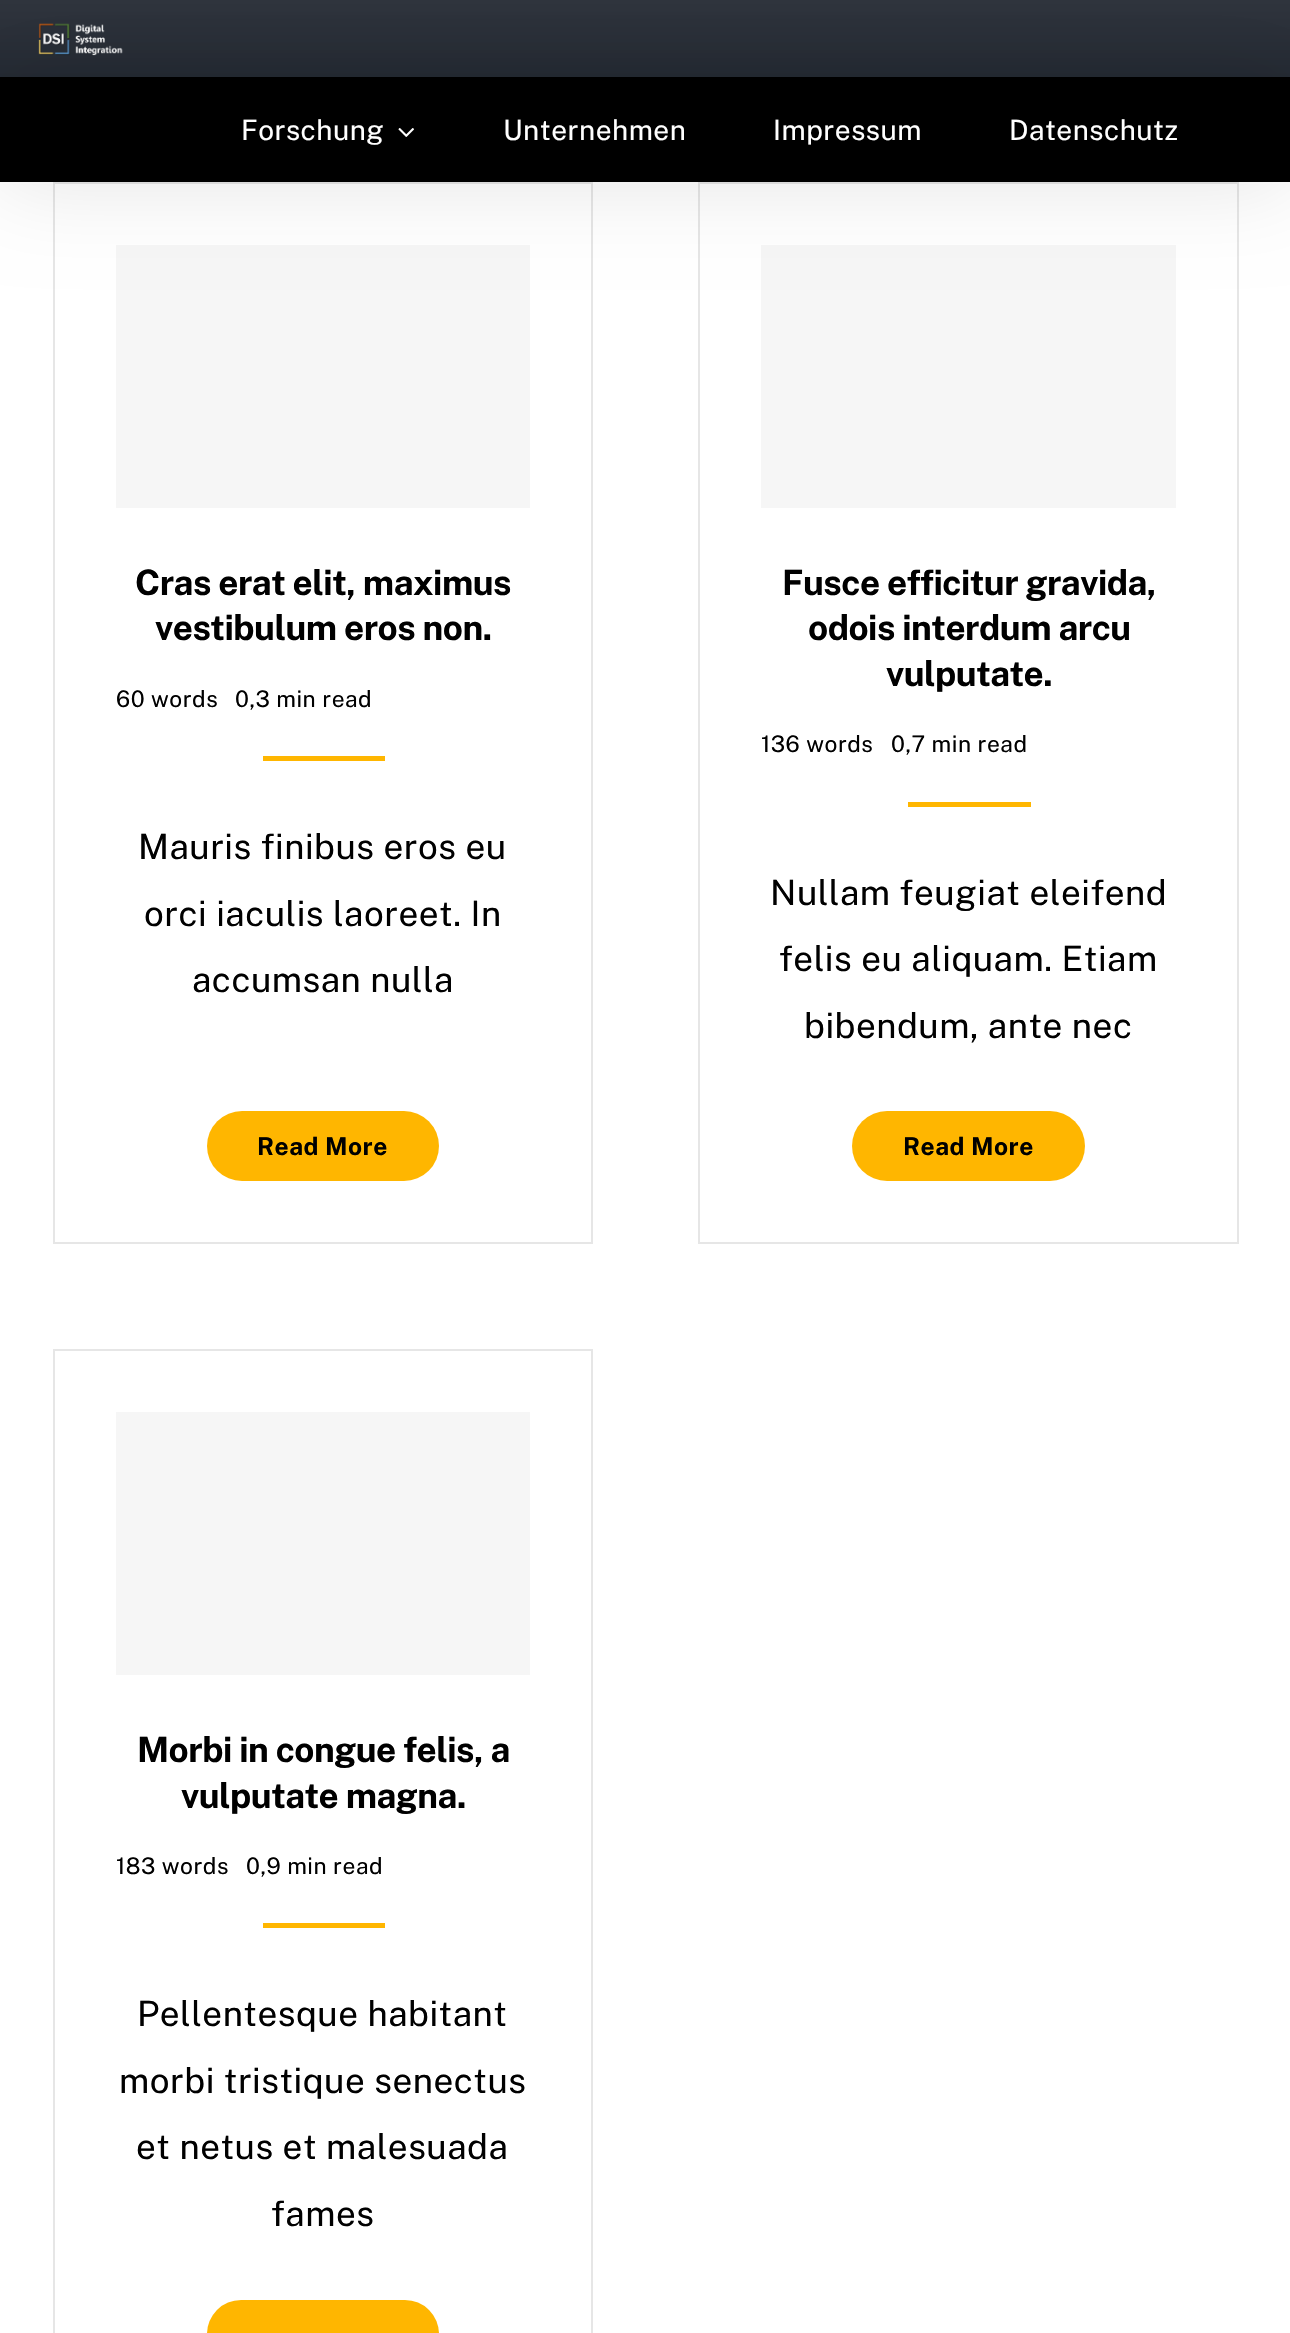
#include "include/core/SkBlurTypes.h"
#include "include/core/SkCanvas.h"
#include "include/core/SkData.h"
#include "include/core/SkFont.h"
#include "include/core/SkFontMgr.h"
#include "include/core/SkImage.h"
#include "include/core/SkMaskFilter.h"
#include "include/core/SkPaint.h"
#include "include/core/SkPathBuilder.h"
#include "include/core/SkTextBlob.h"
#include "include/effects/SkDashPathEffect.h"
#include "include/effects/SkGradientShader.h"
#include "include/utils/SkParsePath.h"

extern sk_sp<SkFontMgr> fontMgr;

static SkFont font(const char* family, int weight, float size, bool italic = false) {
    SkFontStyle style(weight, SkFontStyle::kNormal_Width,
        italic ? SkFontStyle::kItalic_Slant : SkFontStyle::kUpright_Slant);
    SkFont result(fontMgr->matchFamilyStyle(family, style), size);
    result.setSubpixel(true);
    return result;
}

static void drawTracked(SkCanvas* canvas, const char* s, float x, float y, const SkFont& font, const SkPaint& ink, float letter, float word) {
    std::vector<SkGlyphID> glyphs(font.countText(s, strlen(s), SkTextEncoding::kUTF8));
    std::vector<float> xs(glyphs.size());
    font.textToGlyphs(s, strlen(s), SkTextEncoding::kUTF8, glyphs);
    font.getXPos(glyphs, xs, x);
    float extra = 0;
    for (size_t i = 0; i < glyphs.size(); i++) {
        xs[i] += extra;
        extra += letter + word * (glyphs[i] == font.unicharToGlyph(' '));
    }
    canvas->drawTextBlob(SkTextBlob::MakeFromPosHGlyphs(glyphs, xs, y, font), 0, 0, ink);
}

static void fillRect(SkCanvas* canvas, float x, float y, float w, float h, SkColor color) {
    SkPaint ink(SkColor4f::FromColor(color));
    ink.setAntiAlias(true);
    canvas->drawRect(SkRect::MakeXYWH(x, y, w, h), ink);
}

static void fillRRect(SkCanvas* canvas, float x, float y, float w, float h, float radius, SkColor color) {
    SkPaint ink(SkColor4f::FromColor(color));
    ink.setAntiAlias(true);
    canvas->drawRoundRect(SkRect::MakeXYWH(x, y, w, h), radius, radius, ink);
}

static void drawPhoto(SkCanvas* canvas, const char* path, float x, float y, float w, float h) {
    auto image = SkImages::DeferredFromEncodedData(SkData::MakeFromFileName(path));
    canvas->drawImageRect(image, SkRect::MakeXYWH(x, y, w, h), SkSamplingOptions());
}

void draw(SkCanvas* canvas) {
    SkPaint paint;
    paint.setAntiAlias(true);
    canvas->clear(0xFFFFFFFF);
    {
        const SkColor colors[] = {0xFF2F343D, 0xFF242A33};
        const float stops[] = {0, 1};
        const SkPoint ends[] = {{646, 0}, {646, 77}};
        paint.setShader(SkGradientShader::MakeLinear(ends, colors, stops, 2, SkTileMode::kClamp));
        paint.setAlpha(255);
    }
    canvas->drawRect(SkRect::MakeXYWH(0, 0, 1290, 77), paint);
    drawPhoto(canvas, "assets/img1.png", 38, 23, 85, 33);
    paint.setStroke(true);
    paint.setStrokeWidth(2);
    paint.setShader(nullptr);
    paint.setColor(0xFFE6E6E6);
    canvas->drawRect(SkRect::MakeXYWH(54, 183, 538, 1060), paint);
    fillRect(canvas, 116, 245, 414, 263, 0xFFF6F6F6);
    canvas->drawRect(SkRect::MakeXYWH(699, 183, 539, 1060), paint);
    fillRect(canvas, 761, 245, 415, 263, 0xFFF6F6F6);
    paint.setStroke(false);
    paint.setColor(0x1A000000);
    paint.setMaskFilter(SkMaskFilter::MakeBlur(kNormal_SkBlurStyle, 44));
    canvas->drawRect(SkRect::MakeXYWH(-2, 75, 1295, 109), paint);
    paint.setMaskFilter(nullptr);
    fillRect(canvas, 0, 77, 1290, 105, 0xFF000000);
    SkFont font1 = font("Public Sans", 400, 28);
    paint.setColor(0xFFFFFFFF);
    drawTracked(canvas, "Forschung", 241, 140, font1, paint, 0.5f, 0);
    drawPhoto(canvas, "assets/img2.png", 398, 128, 16, 9);
    drawTracked(canvas, "Unternehmen", 503, 140, font1, paint, 0.5f, 0);
    drawTracked(canvas, "Impressum", 773, 140, font1, paint, 0.5f, 0);
    drawTracked(canvas, "Datenschutz", 1009, 140, font1, paint, 0.5f, 0);
    SkFont font2 = font("Public Sans", 700, 35);
    paint.setColor(0xFF000000);
    drawTracked(canvas, "Cras erat elit, maximus", 135, 595, font2, paint, -0.5f, 0);
    drawTracked(canvas, "vestibulum eros non.", 155, 640, font2, paint, -0.5f, 0);
    SkFont font3 = font("Public Sans", 400, 22.75f);
    drawTracked(canvas, "60 words", 116, 707, font3, paint, 0.5f, 0);
    drawTracked(canvas, "0,3 min read", 235, 707, font3, paint, 0.5f, 0);
    fillRect(canvas, 263, 756, 122, 5, 0xFFFFB600);
    SkFont font4 = font("Public Sans", 400, 35);
    drawTracked(canvas, "Mauris finibus eros eu", 138, 859, font4, paint, 0.5f, 0);
    drawTracked(canvas, "orci iaculis laoreet. In", 144, 926, font4, paint, 0.5f, 0);
    drawTracked(canvas, "accumsan nulla", 192, 992, font4, paint, 0.5f, 0);
    fillRRect(canvas, 207, 1111, 232, 70, 35, 0xFFFFB600);
    SkFont font5 = font("Public Sans", 700, 24.5f);
    drawTracked(canvas, "Read More", 257, 1155, font5, paint, 0.5f, 0);
    drawTracked(canvas, "Fusce efficitur gravida,", 782, 595, font2, paint, -0.5f, 0);
    drawTracked(canvas, "odois interdum arcu", 808, 640, font2, paint, -0.5f, 0);
    drawTracked(canvas, "vulputate.", 886, 686, font2, paint, -0.5f, 0);
    drawTracked(canvas, "136 words", 761, 752, font3, paint, 0.5f, 0);
    drawTracked(canvas, "0,7 min read", 891, 752, font3, paint, 0.5f, 0);
    fillRect(canvas, 908, 802, 123, 5, 0xFFFFB600);
    drawTracked(canvas, "Nullam feugiat eleifend", 770, 905, font4, paint, 0.5f, 0);
    drawTracked(canvas, "felis eu aliquam. Etiam", 779, 971, font4, paint, 0.5f, 0);
    drawTracked(canvas, "bibendum, ante nec", 804, 1038, font4, paint, 0.5f, 0);
    fillRRect(canvas, 852, 1111, 233, 70, 35, 0xFFFFB600);
    drawTracked(canvas, "Read More", 903, 1155, font5, paint, 0.5f, 0);
    paint.setStroke(true);
    paint.setColor(0xFFE6E6E6);
    canvas->drawRect(SkRect::MakeXYWH(54, 1350, 538, 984), paint);
    fillRect(canvas, 116, 1412, 414, 263, 0xFFF6F6F6);
    paint.setStroke(false);
    paint.setColor(0xFF000000);
    drawTracked(canvas, "Morbi in congue felis, a", 137, 1762, font2, paint, -0.5f, 0);
    drawTracked(canvas, "vulputate magna.", 181, 1808, font2, paint, -0.5f, 0);
    drawTracked(canvas, "183 words", 116, 1874, font3, paint, 0.5f, 0);
    drawTracked(canvas, "0,9 min read", 246, 1874, font3, paint, 0.5f, 0);
    fillRect(canvas, 263, 1923, 122, 5, 0xFFFFB600);
    drawTracked(canvas, "Pellentesque habitant", 137, 2026, font4, paint, 0.5f, 0);
    drawTracked(canvas, "morbi tristique senectus", 119, 2093, font4, paint, 0.5f, 0);
    drawTracked(canvas, "et netus et malesuada", 136, 2159, font4, paint, 0.5f, 0);
    drawTracked(canvas, "fames", 271, 2226, font4, paint, 0.5f, 0);
    fillRRect(canvas, 207, 2300, 232, 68, 35, 0xFFFFB600);
}
